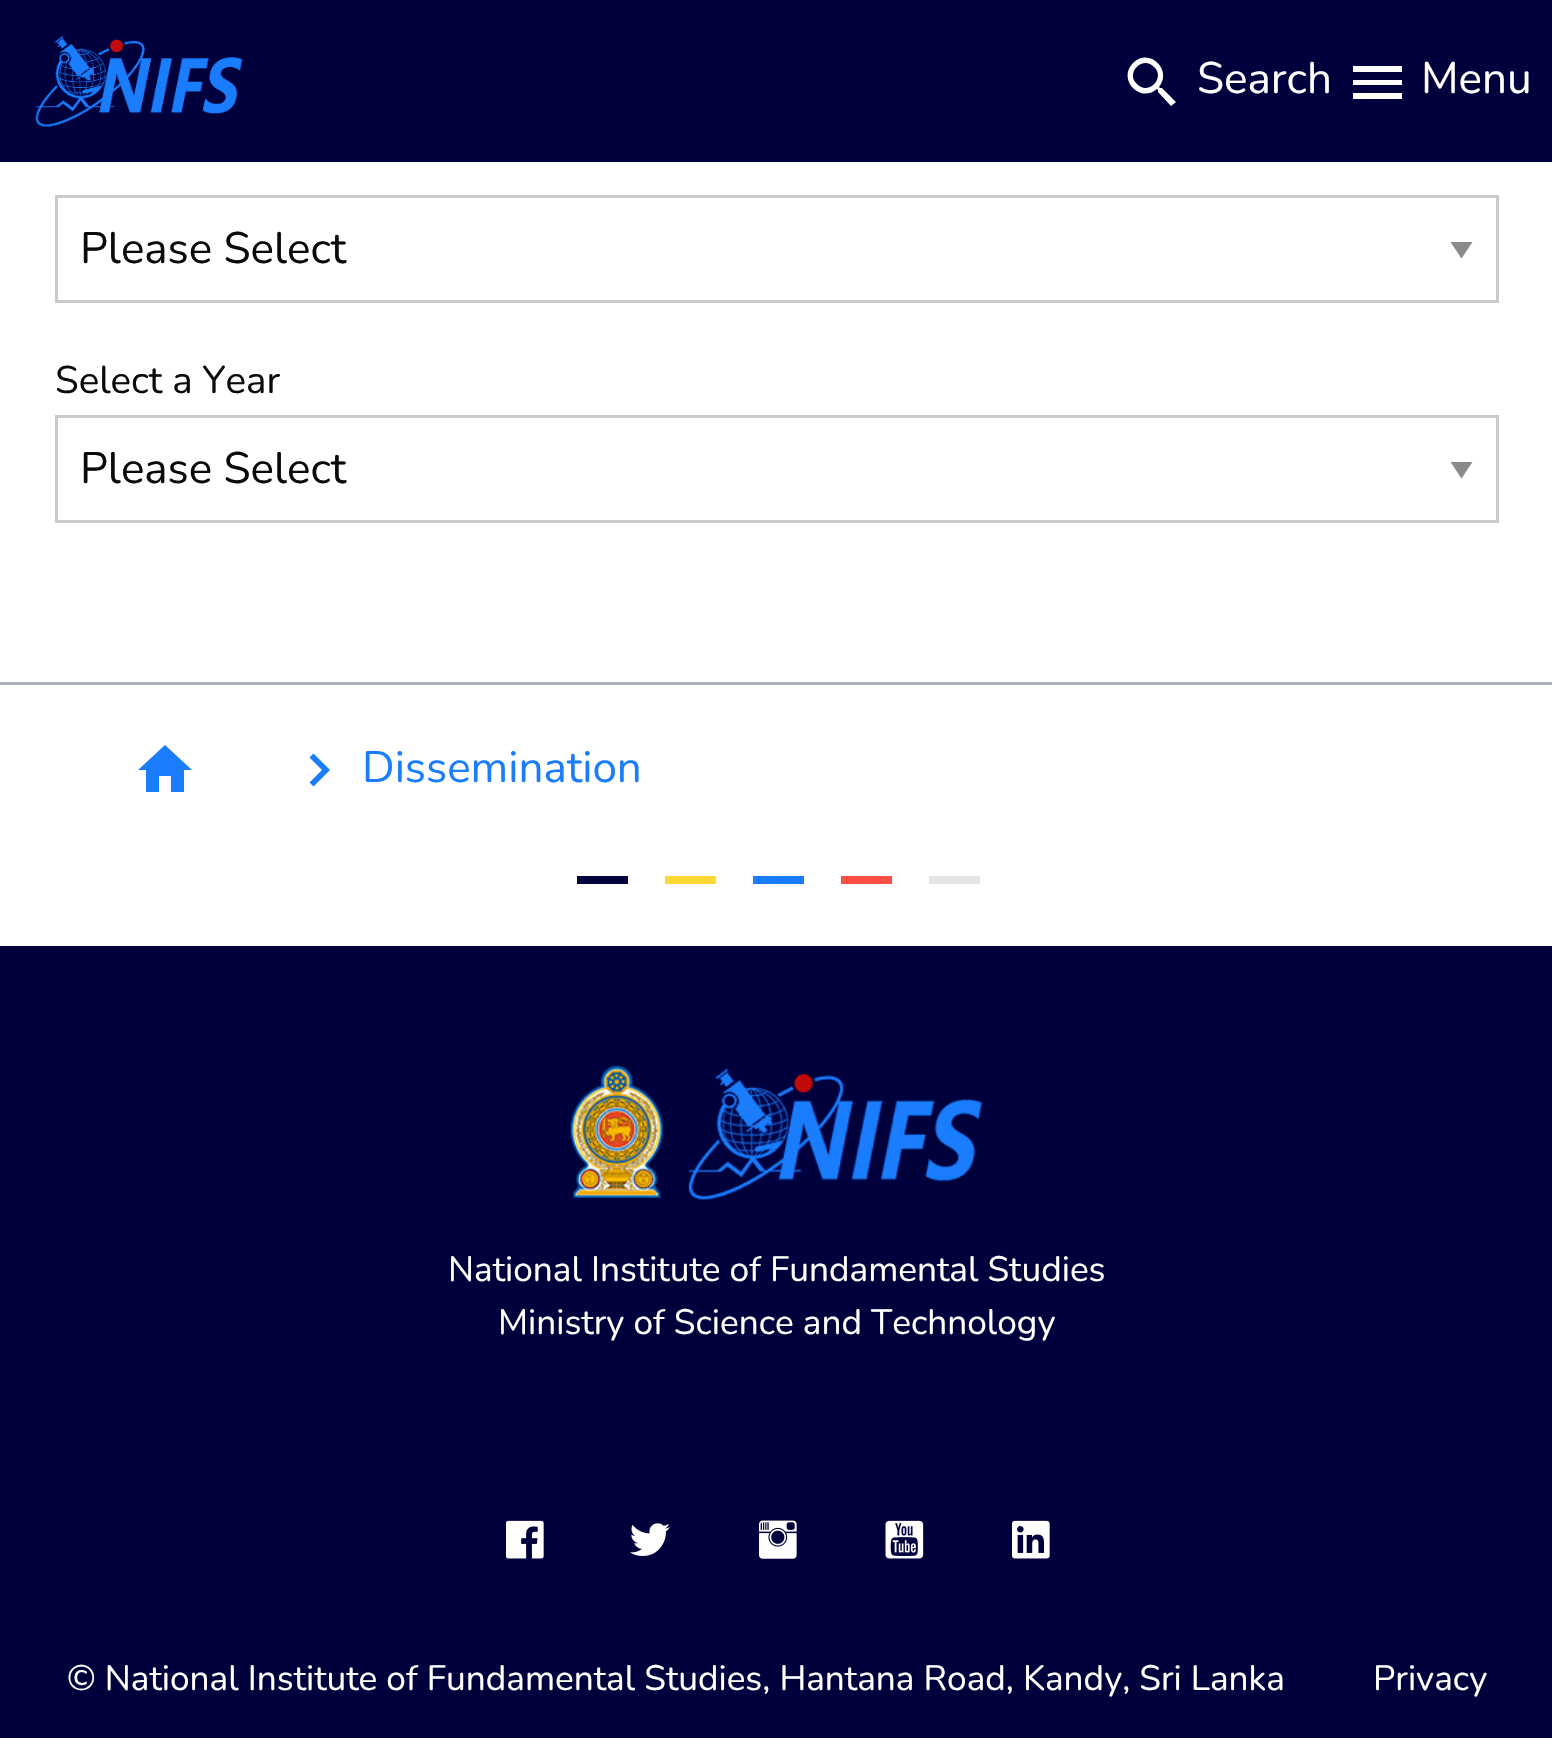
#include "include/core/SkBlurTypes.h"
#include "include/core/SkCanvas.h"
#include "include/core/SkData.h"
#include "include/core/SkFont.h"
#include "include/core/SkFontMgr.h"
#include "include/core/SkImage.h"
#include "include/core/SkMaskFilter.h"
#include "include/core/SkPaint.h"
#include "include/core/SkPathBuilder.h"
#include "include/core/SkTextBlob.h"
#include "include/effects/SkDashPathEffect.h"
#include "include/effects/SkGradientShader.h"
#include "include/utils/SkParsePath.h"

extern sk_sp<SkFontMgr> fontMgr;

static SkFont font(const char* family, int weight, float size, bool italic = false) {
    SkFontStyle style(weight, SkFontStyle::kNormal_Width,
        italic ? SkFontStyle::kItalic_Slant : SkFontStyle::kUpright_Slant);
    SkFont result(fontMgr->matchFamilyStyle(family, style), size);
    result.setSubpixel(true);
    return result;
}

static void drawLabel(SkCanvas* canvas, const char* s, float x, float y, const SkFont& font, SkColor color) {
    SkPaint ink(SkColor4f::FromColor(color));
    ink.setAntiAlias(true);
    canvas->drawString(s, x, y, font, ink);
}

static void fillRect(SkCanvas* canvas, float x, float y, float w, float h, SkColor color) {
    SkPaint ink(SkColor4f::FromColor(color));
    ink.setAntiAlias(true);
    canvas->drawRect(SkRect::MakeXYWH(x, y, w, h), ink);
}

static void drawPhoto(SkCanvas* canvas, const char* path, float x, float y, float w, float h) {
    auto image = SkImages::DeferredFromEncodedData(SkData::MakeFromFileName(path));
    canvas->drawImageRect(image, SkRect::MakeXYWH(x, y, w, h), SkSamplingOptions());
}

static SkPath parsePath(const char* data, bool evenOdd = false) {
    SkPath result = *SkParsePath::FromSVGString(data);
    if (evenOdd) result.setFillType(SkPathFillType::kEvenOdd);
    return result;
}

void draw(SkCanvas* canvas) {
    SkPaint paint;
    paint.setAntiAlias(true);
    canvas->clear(0xFFFFFFFF);
    fillRect(canvas, 0, 0, 1552, 162, 0xFF00003C);
    drawPhoto(canvas, "assets/img1.png", 35, 35, 208, 93);
    paint.setColor(0xFFFFFFFF);
    canvas->drawPath(parsePath("M1137 84C1148 96 1166 78 1154 67C1143 55 1125 73 1137 84ZM1162 88L1176 102L1171 106L1158 92V90L1157 89C1140 104 1117 79 1133 63C1149 47 1173 70 1159 87L1160 88Z"), paint);
    SkFont font1 = font("Nunito", 400, 44);
    drawLabel(canvas, "Search", 1197, 93, font1, 0xFFFFFFFF);
    canvas->drawPath(parsePath("M1353 66H1402V72H1353ZM1353 85V80H1402V85ZM1353 99V93H1402V99Z"), paint);
    drawLabel(canvas, "Menu", 1421, 93, font1, 0xFFFFFFFF);
    paint.setColor(0xFF8A8A8A);
    canvas->drawPath(parsePath("M1450.5 242H1472.5L1461.5 258.5Z"), paint);
    paint.setStroke(true);
    paint.setStrokeWidth(3);
    paint.setColor(0xFFCACACA);
    canvas->drawRect(SkRect::MakeXYWH(56.5f, 196.5f, 1441, 105), paint);
    drawLabel(canvas, "Please Select", 80, 263, font1, 0xFF0A0A0A);
    SkFont font2 = font("Nunito", 400, 38.5f);
    drawLabel(canvas, "Select a Year", 55, 393, font2, 0xFF0A0A0A);
    paint.setStroke(false);
    paint.setColor(0xFF8A8A8A);
    canvas->drawPath(parsePath("M1450.5 462H1472.5L1461.5 478.5Z"), paint);
    paint.setStroke(true);
    paint.setColor(0xFFCACACA);
    canvas->drawRect(SkRect::MakeXYWH(56.5f, 416.5f, 1441, 105), paint);
    drawLabel(canvas, "Please Select", 80, 483, font1, 0xFF0A0A0A);
    fillRect(canvas, 0, 682, 1552, 3, 0xFFADB0BE);
    paint.setStroke(false);
    paint.setColor(0xFF197DFD);
    canvas->drawPath(parsePath("M159 792H146V770H138L165 745L192 770H184V792H171V776H159Z"), paint);
    canvas->drawPath(parsePath("M309.5 782.5L322 770L309.5 757.5L313.5 753.5L330 770L313.5 786.5Z"), paint);
    drawLabel(canvas, "Dissemination", 362, 782, font1, 0xFF197DFD);
    fillRect(canvas, 577, 876, 51, 8, 0xFF00003C);
    fillRect(canvas, 665, 876, 51, 8, 0xFFFDD835);
    fillRect(canvas, 753, 876, 51, 8, 0xFF197DFD);
    fillRect(canvas, 841, 876, 51, 8, 0xFFFF4F45);
    fillRect(canvas, 929, 876, 51, 8, 0xFFE6E6E6);
    fillRect(canvas, 0, 946, 1552, 792, 0xFF00003C);
    drawPhoto(canvas, "assets/img2.png", 570, 1065, 412, 135);
    SkFont font3 = font("Nunito", 400, 35.2f);
    drawLabel(canvas, "National Institute of Fundamental Studies", 448, 1281, font3, 0xFFFFFFFF);
    drawLabel(canvas, "Ministry of Science and Technology", 498, 1334, font3, 0xFFFFFFFF);
    drawPhoto(canvas, "assets/img3.png", 506, 1520, 38, 39);
    drawPhoto(canvas, "assets/img4.png", 630, 1523, 40, 33);
    drawPhoto(canvas, "assets/img5.png", 759, 1520, 38, 39);
    drawPhoto(canvas, "assets/img6.png", 885, 1520, 39, 39);
    drawPhoto(canvas, "assets/img7.png", 1012, 1520, 38, 39);
    drawLabel(canvas, "© National Institute of Fundamental Studies, Hantana Road, Kandy, Sri Lanka", 67, 1690, font3, 0xFFFFFFFF);
    drawLabel(canvas, "Privacy", 1373, 1690, font3, 0xFFFFFFFF);
}
